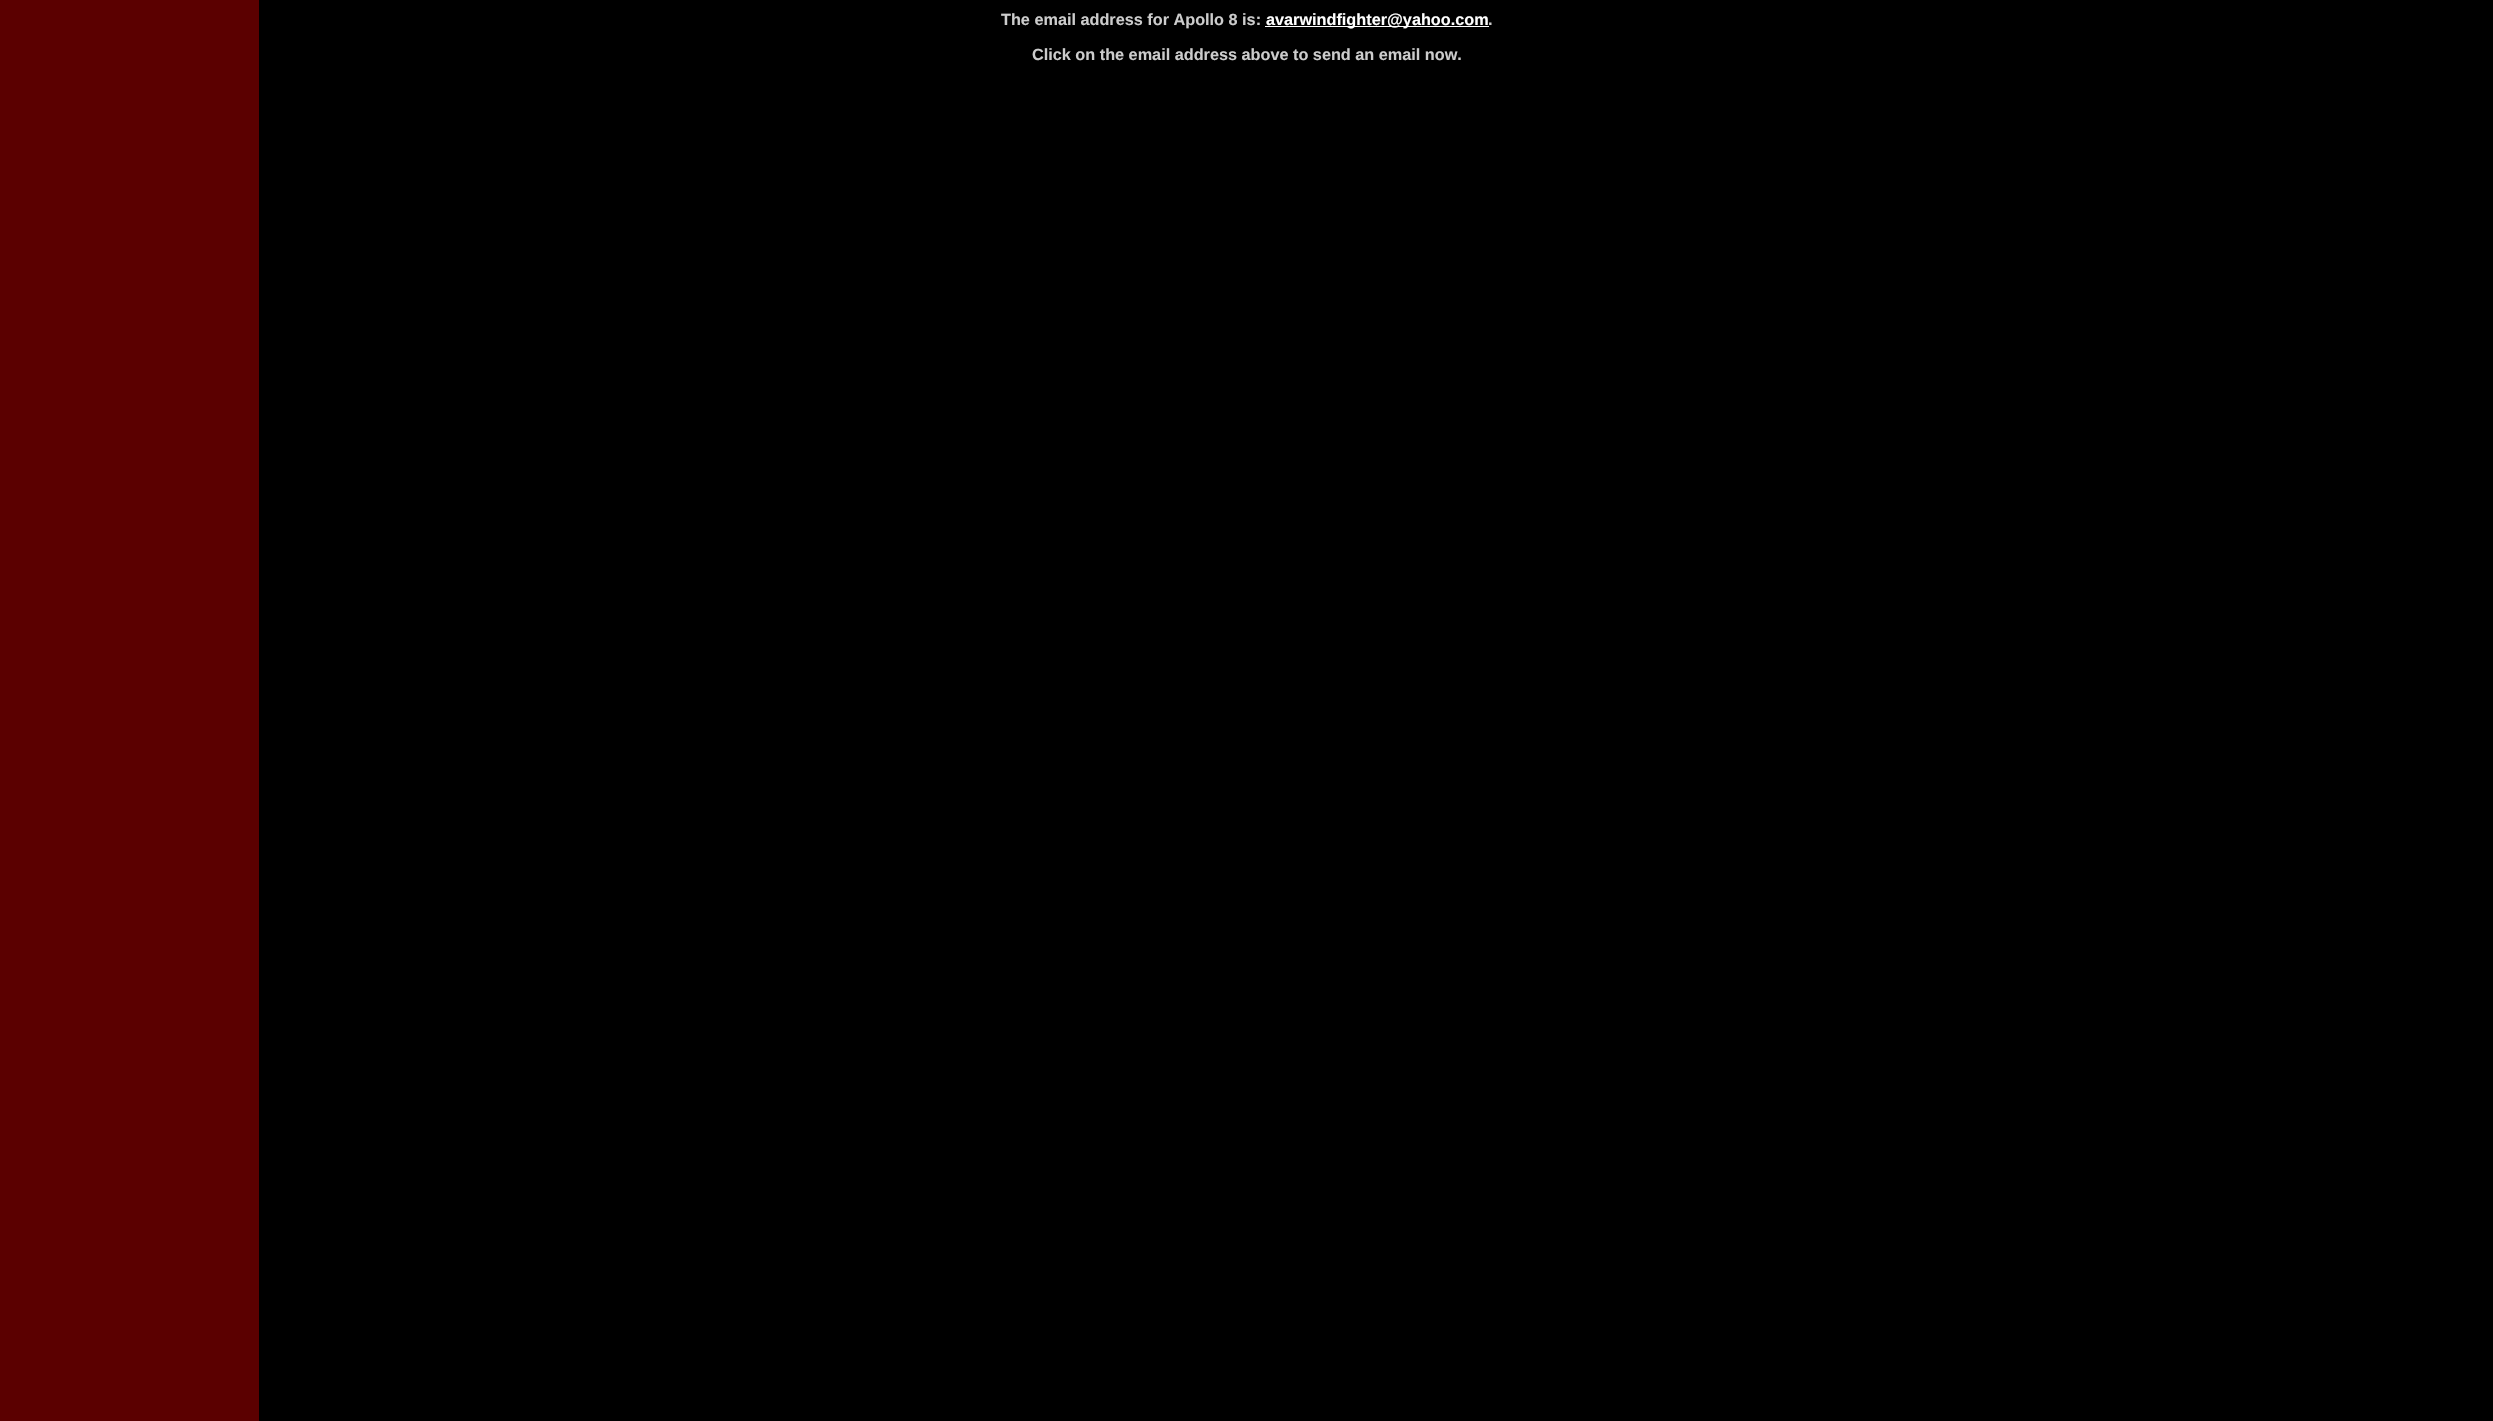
#include "include/core/SkBlurTypes.h"
#include "include/core/SkCanvas.h"
#include "include/core/SkData.h"
#include "include/core/SkFont.h"
#include "include/core/SkFontMgr.h"
#include "include/core/SkImage.h"
#include "include/core/SkMaskFilter.h"
#include "include/core/SkPaint.h"
#include "include/core/SkPathBuilder.h"
#include "include/core/SkTextBlob.h"
#include "include/effects/SkDashPathEffect.h"
#include "include/effects/SkGradientShader.h"
#include "include/utils/SkParsePath.h"

extern sk_sp<SkFontMgr> fontMgr;

static SkFont font(const char* family, int weight, float size, bool italic = false) {
    SkFontStyle style(weight, SkFontStyle::kNormal_Width,
        italic ? SkFontStyle::kItalic_Slant : SkFontStyle::kUpright_Slant);
    SkFont result(fontMgr->matchFamilyStyle(family, style), size);
    result.setSubpixel(true);
    return result;
}

static void drawLabel(SkCanvas* canvas, const char* s, float x, float y, const SkFont& font, SkColor color) {
    SkPaint ink(SkColor4f::FromColor(color));
    ink.setAntiAlias(true);
    canvas->drawString(s, x, y, font, ink);
}

static void fillRect(SkCanvas* canvas, float x, float y, float w, float h, SkColor color) {
    SkPaint ink(SkColor4f::FromColor(color));
    ink.setAntiAlias(true);
    canvas->drawRect(SkRect::MakeXYWH(x, y, w, h), ink);
}

void draw(SkCanvas* canvas) {
    SkPaint paint;
    paint.setAntiAlias(true);
    canvas->clear(0xFF000000);
    fillRect(canvas, 0, 0, 259, 1421, 0xFF5B0000);
    SkFont font1 = font("Liberation Sans", 700, 16.25f);
    drawLabel(canvas, "The email address for Apollo 8 is:", 1001, 25, font1, 0xFFCCCCCC);
    fillRect(canvas, 1265, 26, 224, 1, 0xFFFFFFFF);
    drawLabel(canvas, "avarwindfighter@yahoo.com", 1266, 25, font1, 0xFFFFFFFF);
    drawLabel(canvas, ".", 1488, 25, font1, 0xFFCCCCCC);
    drawLabel(canvas, "Click on the email address above to send an email now.", 1032, 60, font1, 0xFFCCCCCC);
}
